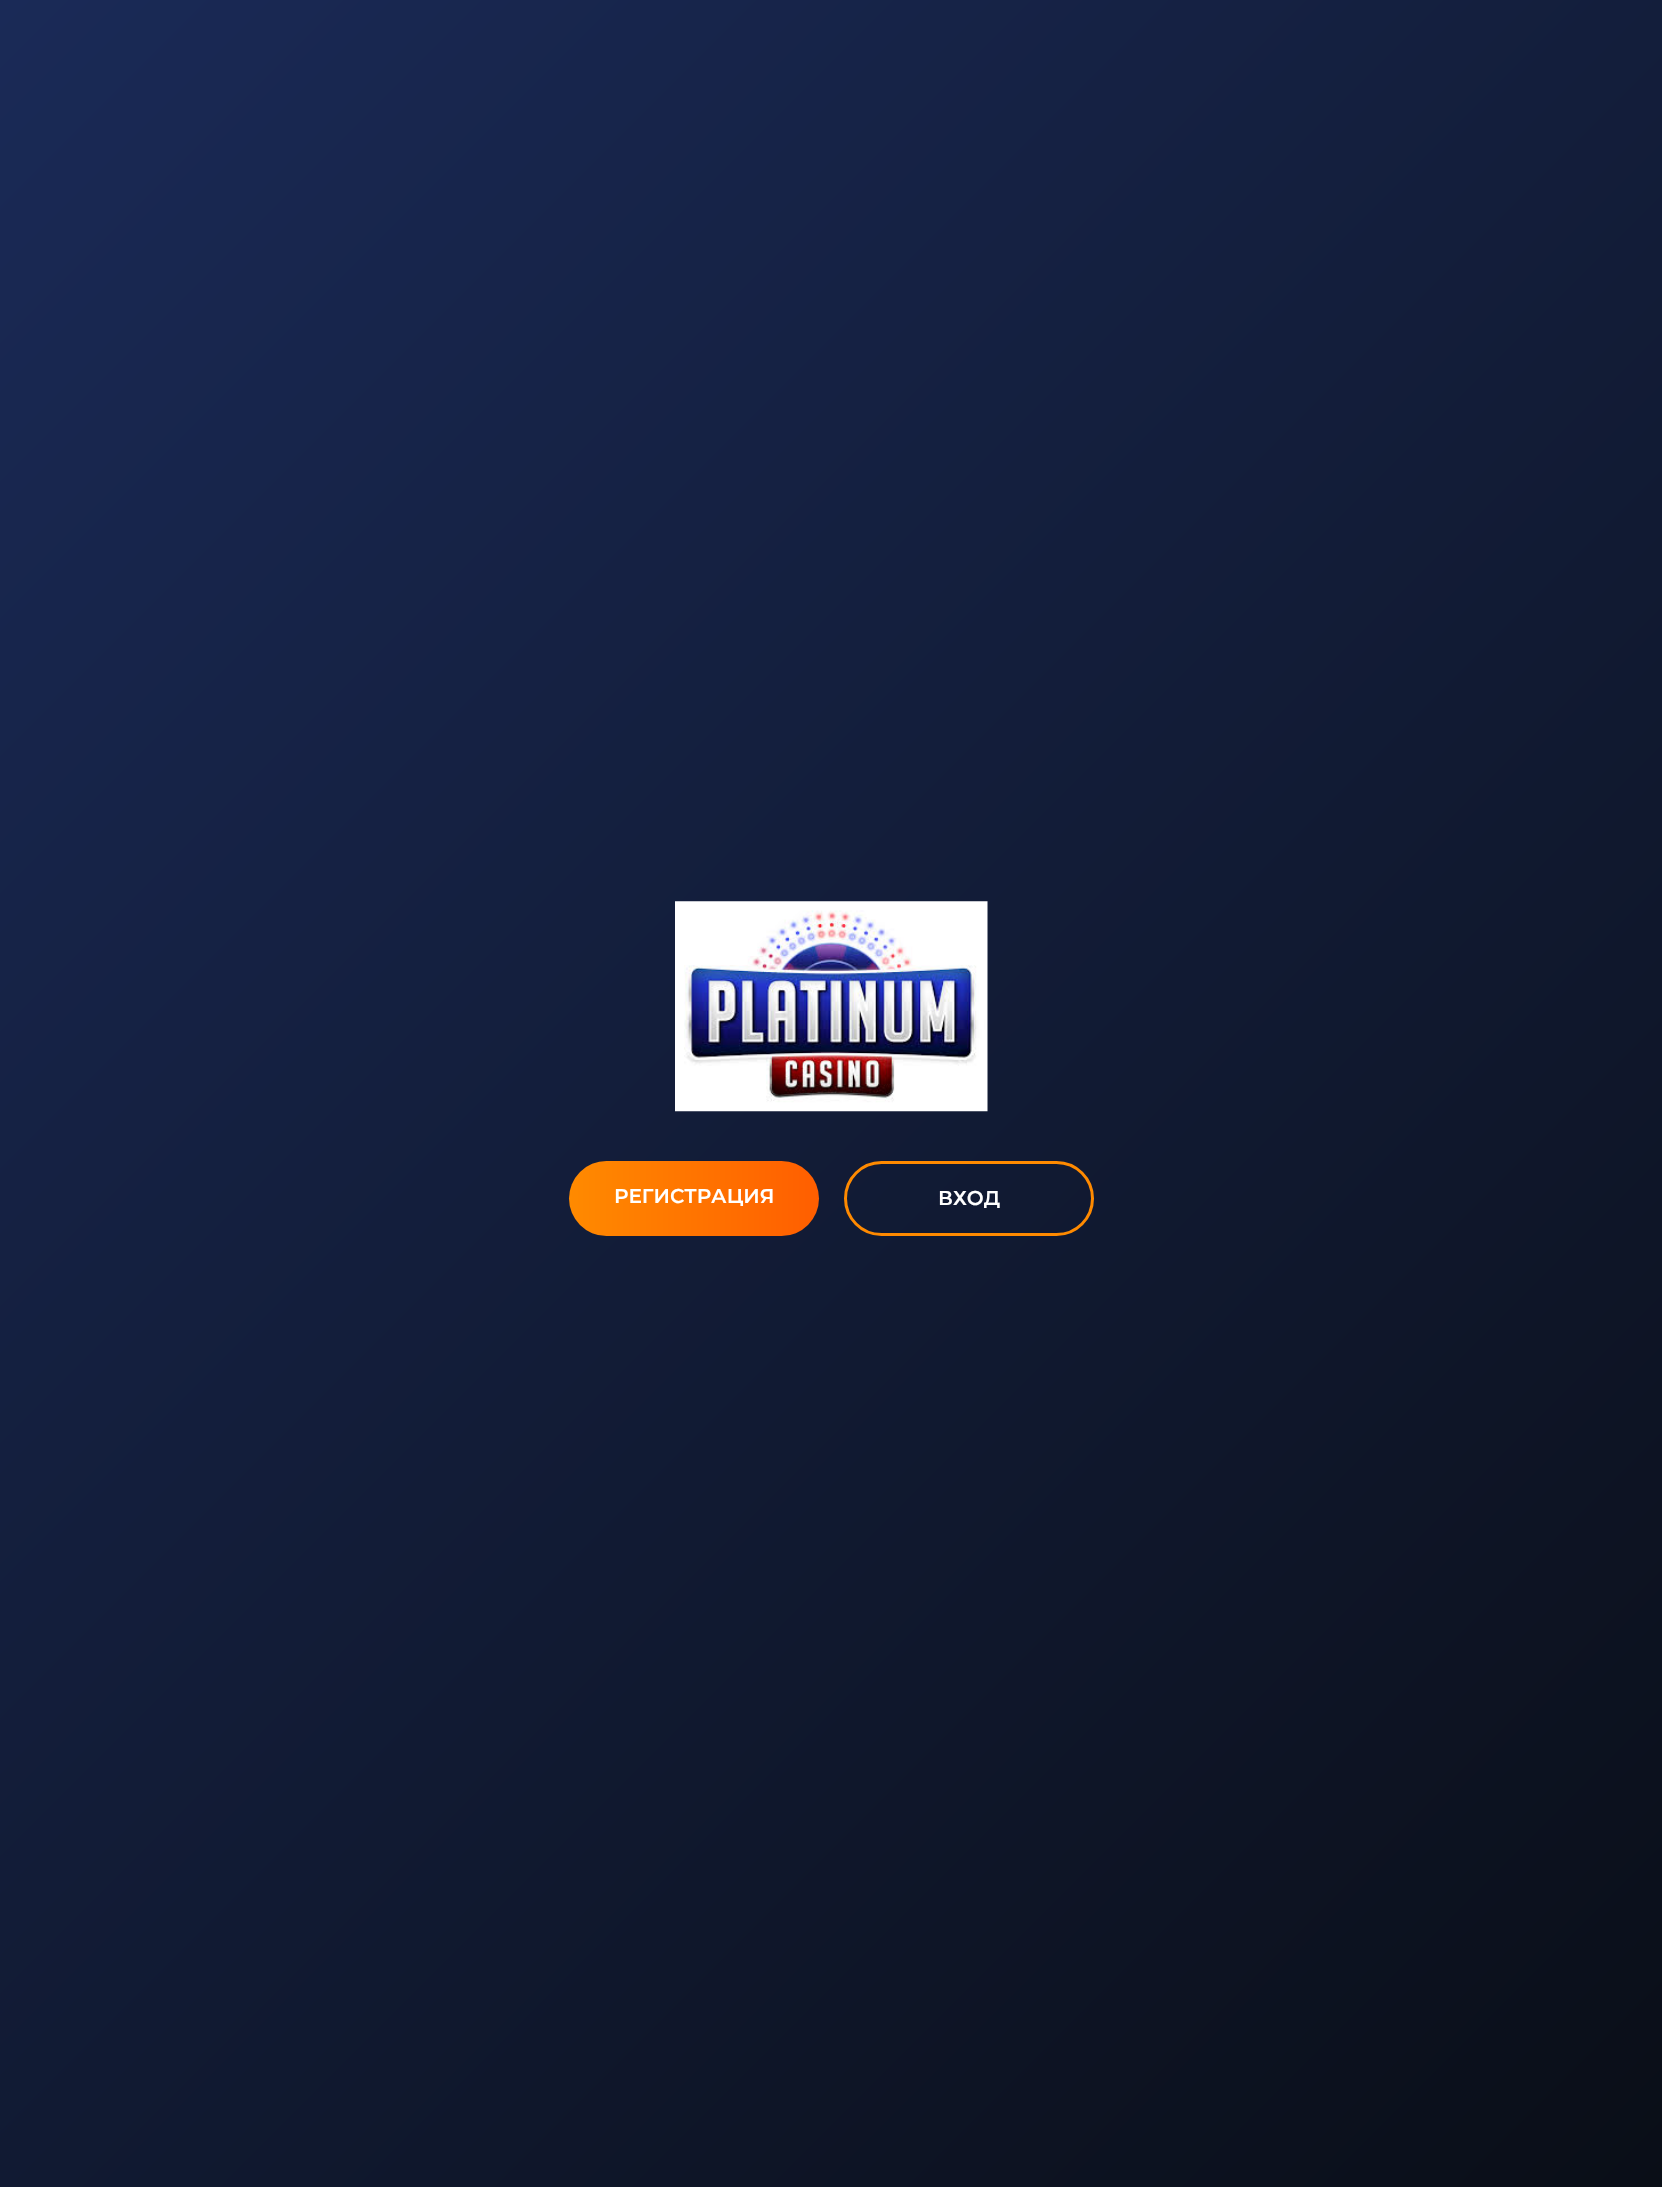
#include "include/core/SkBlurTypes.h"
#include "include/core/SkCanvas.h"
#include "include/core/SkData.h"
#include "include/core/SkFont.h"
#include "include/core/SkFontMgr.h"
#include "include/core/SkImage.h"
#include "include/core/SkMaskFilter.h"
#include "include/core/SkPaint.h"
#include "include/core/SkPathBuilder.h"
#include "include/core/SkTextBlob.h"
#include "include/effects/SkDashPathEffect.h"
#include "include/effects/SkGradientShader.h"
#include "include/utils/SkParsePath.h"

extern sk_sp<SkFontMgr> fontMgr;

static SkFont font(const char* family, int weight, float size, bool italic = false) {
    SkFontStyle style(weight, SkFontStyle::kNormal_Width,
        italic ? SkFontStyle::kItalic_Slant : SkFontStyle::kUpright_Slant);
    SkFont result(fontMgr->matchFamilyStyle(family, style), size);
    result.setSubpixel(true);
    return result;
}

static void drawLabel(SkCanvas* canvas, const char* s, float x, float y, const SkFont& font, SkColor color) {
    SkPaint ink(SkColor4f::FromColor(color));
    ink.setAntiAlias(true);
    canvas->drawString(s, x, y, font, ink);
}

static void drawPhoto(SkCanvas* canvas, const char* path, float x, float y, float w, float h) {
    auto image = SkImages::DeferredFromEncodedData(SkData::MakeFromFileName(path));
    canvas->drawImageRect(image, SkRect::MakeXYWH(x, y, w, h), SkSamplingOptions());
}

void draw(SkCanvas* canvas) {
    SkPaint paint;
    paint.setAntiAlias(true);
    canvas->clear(0xFFFFFFFF);
    {
        const SkColor colors[] = {0xFF1A2A57, 0xFF0A0E17};
        const float stops[] = {0, 1};
        const SkPoint ends[] = {{-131, 131}, {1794, 2056}};
        paint.setShader(SkGradientShader::MakeLinear(ends, colors, stops, 2, SkTileMode::kClamp));
        paint.setAlpha(255);
    }
    canvas->drawRect(SkRect::MakeXYWH(0, 0, 1662, 2187), paint);
    drawPhoto(canvas, "assets/img1.png", 675, 901, 313, 211);
    {
        const SkColor colors[] = {0xFFFF8A00, 0xFFFF5E00};
        const float stops[] = {0, 1};
        const SkPoint ends[] = {{569, 1199}, {819, 1199}};
        paint.setShader(SkGradientShader::MakeLinear(ends, colors, stops, 2, SkTileMode::kClamp));
        paint.setAlpha(255);
    }
    canvas->drawRoundRect(SkRect::MakeXYWH(569, 1161, 250, 75), 37.5f, 37.5f, paint);
    SkFont font1 = font("Montserrat", 600, 20);
    drawLabel(canvas, "РЕГИСТРАЦИЯ", 614, 1203, font1, 0xFFFFFFFF);
    paint.setStroke(true);
    paint.setStrokeWidth(3);
    paint.setShader(nullptr);
    paint.setColor(0xFFFF8A00);
    canvas->drawRoundRect(SkRect::MakeXYWH(845.5f, 1162.5f, 247, 72), 36, 36, paint);
    drawLabel(canvas, "ВХОД", 938, 1205, font1, 0xFFFFFFFF);
}
